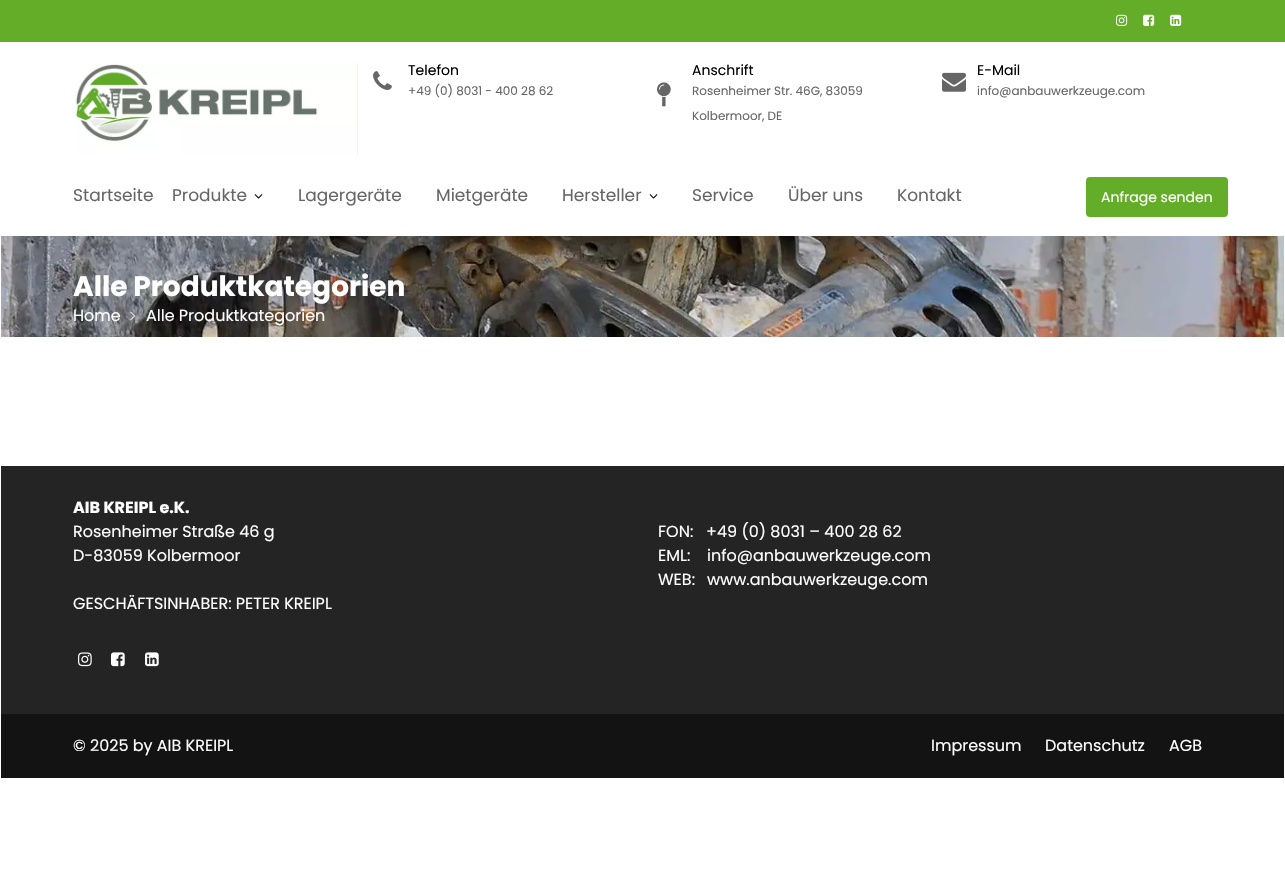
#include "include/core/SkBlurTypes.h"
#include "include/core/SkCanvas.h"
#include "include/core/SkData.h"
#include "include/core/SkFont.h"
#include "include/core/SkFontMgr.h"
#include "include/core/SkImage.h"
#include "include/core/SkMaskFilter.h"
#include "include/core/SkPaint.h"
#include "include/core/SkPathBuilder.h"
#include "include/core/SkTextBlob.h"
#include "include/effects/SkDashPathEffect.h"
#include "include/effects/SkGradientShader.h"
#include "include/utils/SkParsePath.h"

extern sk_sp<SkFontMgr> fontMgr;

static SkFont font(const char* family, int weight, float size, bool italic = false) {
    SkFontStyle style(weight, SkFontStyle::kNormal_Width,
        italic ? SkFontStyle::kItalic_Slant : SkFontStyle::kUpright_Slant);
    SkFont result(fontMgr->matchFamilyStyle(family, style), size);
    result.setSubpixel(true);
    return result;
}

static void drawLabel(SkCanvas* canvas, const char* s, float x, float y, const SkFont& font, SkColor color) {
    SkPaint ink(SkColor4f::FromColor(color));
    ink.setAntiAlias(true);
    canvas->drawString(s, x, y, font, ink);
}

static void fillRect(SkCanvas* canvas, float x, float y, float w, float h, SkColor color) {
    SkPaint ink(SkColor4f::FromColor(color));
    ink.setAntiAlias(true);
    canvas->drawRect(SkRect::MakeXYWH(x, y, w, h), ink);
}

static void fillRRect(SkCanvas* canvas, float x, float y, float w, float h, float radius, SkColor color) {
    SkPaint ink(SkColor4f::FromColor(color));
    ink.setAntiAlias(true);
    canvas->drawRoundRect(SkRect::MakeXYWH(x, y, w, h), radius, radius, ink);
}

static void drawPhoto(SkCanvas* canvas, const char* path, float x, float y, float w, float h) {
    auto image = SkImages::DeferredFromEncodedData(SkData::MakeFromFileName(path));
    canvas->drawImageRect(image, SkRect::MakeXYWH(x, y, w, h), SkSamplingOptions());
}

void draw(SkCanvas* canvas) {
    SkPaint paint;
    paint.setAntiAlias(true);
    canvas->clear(0xFFFFFFFF);
    fillRect(canvas, 0, 0, 1285, 42, 0xFF64AD29);
    drawPhoto(canvas, "assets/img1.png", 1116, 14, 12, 12);
    drawPhoto(canvas, "assets/img2.png", 1143, 14, 12, 12);
    drawPhoto(canvas, "assets/img3.png", 1170, 14, 12, 12);
    drawPhoto(canvas, "assets/img4.png", 75, 63, 283, 92);
    drawPhoto(canvas, "assets/img5.png", 373, 71, 19, 19);
    SkFont font1 = font("Poppins", 400, 14);
    drawLabel(canvas, "Telefon", 408, 75, font1, 0xFF000000);
    SkFont font2 = font("Poppins", 400, 12);
    drawLabel(canvas, "+49 (0) 8031 - 400 28 62", 408, 95, font2, 0xFF666666);
    drawPhoto(canvas, "assets/img6.png", 657, 82, 14, 25);
    drawLabel(canvas, "Anschrift", 692, 75, font1, 0xFF000000);
    drawLabel(canvas, "Rosenheimer Str. 46G, 83059", 692, 95, font2, 0xFF666666);
    drawLabel(canvas, "Kolbermoor, DE", 692, 120, font2, 0xFF666666);
    drawPhoto(canvas, "assets/img7.png", 942, 72, 24, 20);
    drawLabel(canvas, "E-Mail", 977, 75, font1, 0xFF000000);
    drawLabel(canvas, "info@anbauwerkzeuge.com", 977, 95, font2, 0xFF666666);
    SkFont font3 = font("Poppins", 400, 17);
    drawLabel(canvas, "Startseite", 73, 201, font3, 0xFF666666);
    drawLabel(canvas, "Produkte", 172, 201, font3, 0xFF666666);
    drawPhoto(canvas, "assets/img8.png", 254, 194, 9, 5);
    drawLabel(canvas, "Lagergeräte", 298, 201, font3, 0xFF666666);
    drawLabel(canvas, "Mietgeräte", 436, 201, font3, 0xFF666666);
    drawLabel(canvas, "Hersteller", 562, 201, font3, 0xFF666666);
    drawPhoto(canvas, "assets/img8.png", 649, 194, 9, 5);
    drawLabel(canvas, "Service", 692, 201, font3, 0xFF666666);
    drawLabel(canvas, "Über uns", 788, 201, font3, 0xFF666666);
    drawLabel(canvas, "Kontakt", 897, 201, font3, 0xFF666666);
    fillRRect(canvas, 1086, 177, 142, 40, 4, 0xFF64AD29);
    drawLabel(canvas, "Anfrage senden", 1101, 202, font1, 0xFFFFFFFF);
    drawPhoto(canvas, "assets/img9.png", 1, 236, 1283, 101);
    SkFont font4 = font("Poppins", 700, 28);
    drawLabel(canvas, "Alle Produktkategorien", 73, 296, font4, 0xFFFFFFFF);
    SkFont font5 = font("Poppins", 400, 16);
    drawLabel(canvas, "Home", 73, 321, font5, 0xFFFFFFFF);
    drawPhoto(canvas, "assets/img10.png", 130, 311, 6, 10);
    drawLabel(canvas, "Alle Produktkategorien", 146, 321, font5, 0xFFFFFFFF);
    fillRect(canvas, 1, 466, 1283, 248, 0xFF242424);
    SkFont font6 = font("Poppins", 700, 16);
    drawLabel(canvas, "AIB KREIPL e.K.", 73, 513, font6, 0xFFFFFFFF);
    drawLabel(canvas, "Rosenheimer Straße 46 g", 73, 537, font5, 0xFFFFFFFF);
    drawLabel(canvas, "D-83059 Kolbermoor", 73, 561, font5, 0xFFFFFFFF);
    drawLabel(canvas, "GESCHÄFTSINHABER: PETER KREIPL", 73, 609, font5, 0xFFFFFFFF);
    drawPhoto(canvas, "assets/img11.png", 78, 652, 14, 15);
    drawPhoto(canvas, "assets/img12.png", 111, 652, 14, 15);
    drawPhoto(canvas, "assets/img13.png", 145, 652, 14, 15);
    drawLabel(canvas, "FON:   +49 (0) 8031 – 400 28 62", 658, 537, font5, 0xFFFFFFFF);
    drawLabel(canvas, "EML:", 658, 561, font5, 0xFFFFFFFF);
    drawLabel(canvas, "info@anbauwerkzeuge.com", 707, 561, font5, 0xFFFFFFFF);
    drawLabel(canvas, "WEB:", 658, 585, font5, 0xFFFFFFFF);
    drawLabel(canvas, "www.anbauwerkzeuge.com", 707, 585, font5, 0xFFFFFFFF);
    fillRect(canvas, 1, 714, 1283, 64, 0xFF131313);
    drawLabel(canvas, "© 2025 by AIB KREIPL", 73, 751, font5, 0xFFFFFFFF);
    drawLabel(canvas, "Impressum", 931, 751, font5, 0xFFFFFFFF);
    drawLabel(canvas, "Datenschutz", 1045, 751, font5, 0xFFFFFFFF);
    drawLabel(canvas, "AGB", 1169, 751, font5, 0xFFFFFFFF);
}
